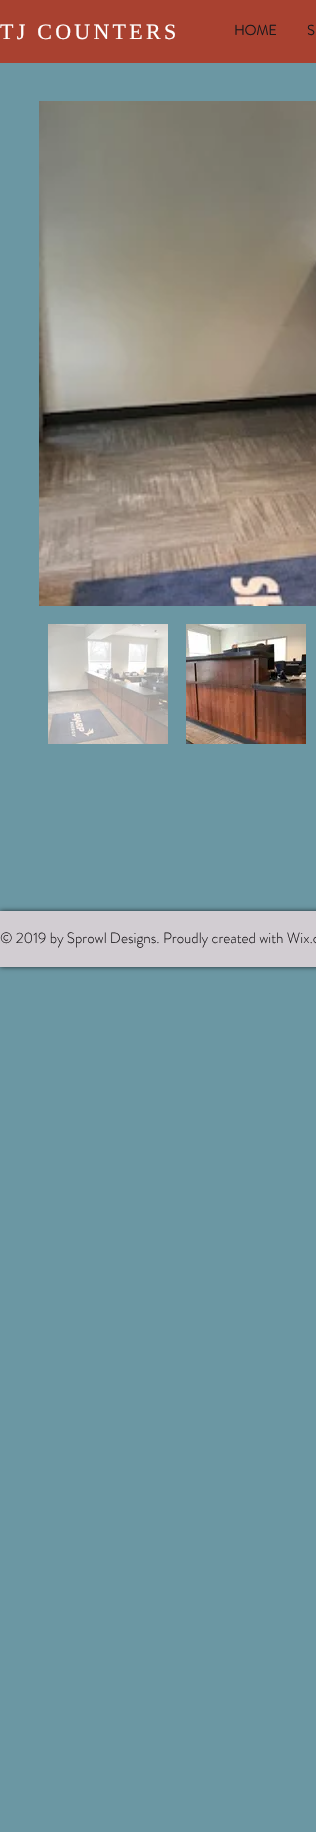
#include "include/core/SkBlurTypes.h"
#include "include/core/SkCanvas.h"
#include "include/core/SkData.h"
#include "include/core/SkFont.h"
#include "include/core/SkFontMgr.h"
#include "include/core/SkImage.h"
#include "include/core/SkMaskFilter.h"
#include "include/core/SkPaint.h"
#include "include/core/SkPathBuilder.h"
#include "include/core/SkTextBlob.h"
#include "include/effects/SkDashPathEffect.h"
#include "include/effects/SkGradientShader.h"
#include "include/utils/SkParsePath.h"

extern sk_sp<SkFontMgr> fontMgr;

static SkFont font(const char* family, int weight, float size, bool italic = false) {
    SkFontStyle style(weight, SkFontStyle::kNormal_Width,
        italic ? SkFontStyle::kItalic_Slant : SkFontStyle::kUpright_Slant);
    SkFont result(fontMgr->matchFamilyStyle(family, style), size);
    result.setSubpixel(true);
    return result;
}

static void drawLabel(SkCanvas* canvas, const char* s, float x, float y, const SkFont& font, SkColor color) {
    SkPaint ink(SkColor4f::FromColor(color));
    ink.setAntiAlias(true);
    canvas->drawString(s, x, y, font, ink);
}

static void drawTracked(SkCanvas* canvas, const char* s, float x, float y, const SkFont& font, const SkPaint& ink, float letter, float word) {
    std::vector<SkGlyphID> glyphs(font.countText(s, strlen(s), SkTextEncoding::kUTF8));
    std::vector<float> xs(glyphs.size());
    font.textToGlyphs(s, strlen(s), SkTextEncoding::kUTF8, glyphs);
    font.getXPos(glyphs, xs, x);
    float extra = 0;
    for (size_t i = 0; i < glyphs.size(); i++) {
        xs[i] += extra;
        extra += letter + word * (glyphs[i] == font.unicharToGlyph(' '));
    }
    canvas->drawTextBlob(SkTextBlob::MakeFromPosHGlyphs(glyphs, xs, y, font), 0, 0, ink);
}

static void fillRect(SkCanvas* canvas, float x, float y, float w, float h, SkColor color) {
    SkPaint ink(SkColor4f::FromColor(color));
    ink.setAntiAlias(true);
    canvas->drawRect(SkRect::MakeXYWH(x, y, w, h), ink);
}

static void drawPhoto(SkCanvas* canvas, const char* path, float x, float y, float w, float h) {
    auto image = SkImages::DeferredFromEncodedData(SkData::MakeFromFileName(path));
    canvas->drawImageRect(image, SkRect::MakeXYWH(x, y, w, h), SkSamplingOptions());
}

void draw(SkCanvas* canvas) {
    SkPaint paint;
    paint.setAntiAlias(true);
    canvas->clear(0xFF6B97A3);
    fillRect(canvas, 0, 0, 316, 63, 0xFFA94130);
    SkFont font1 = font("Liberation Serif", 400, 22);
    paint.setColor(0xFFFFFFFF);
    drawTracked(canvas, "TJ COUNTERS", 0, 39, font1, paint, 3.25f, 0);
    SkFont font2 = font("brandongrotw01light", 700, 14);
    drawLabel(canvas, "HOME", 234, 35, font2, 0xFF1C191C);
    drawLabel(canvas, "S", 307, 35, font2, 0xFF1C191C);
    drawPhoto(canvas, "assets/img1.png", 39, 101, 277, 505);
    drawPhoto(canvas, "assets/img2.png", 48, 624, 120, 120);
    drawPhoto(canvas, "assets/img3.png", 186, 624, 120, 120);
    paint.setColor(0xB3000000);
    paint.setMaskFilter(SkMaskFilter::MakeBlur(kNormal_SkBlurStyle, 2.5f));
    canvas->drawRect(SkRect::MakeXYWH(0, 911, 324, 56), paint);
    paint.setMaskFilter(nullptr);
    fillRect(canvas, 0, 911, 316, 56, 0xFFD2CDD2);
    SkFont font3 = font("brandongrotw01light", 300, 15);
    drawLabel(canvas, "© 2019 by Sprowl Designs. Proudly created with Wix.c", 0, 943, font3, 0xFF1C191C);
}
